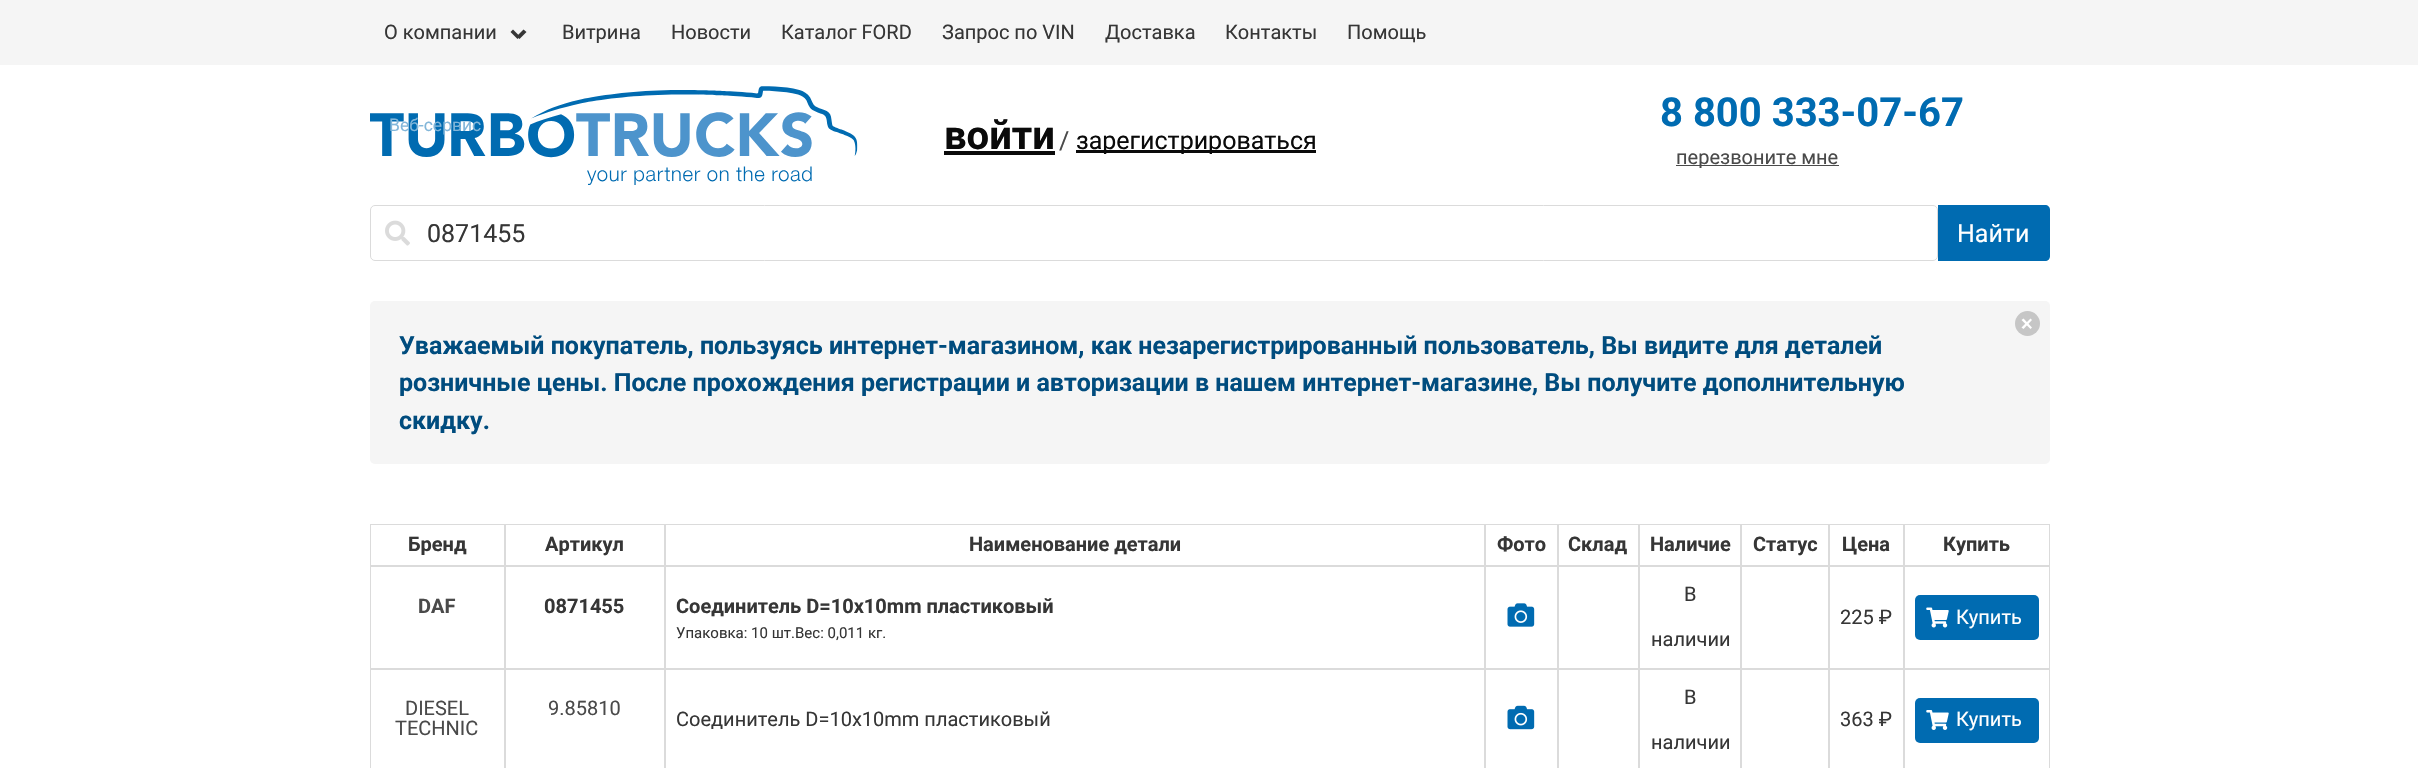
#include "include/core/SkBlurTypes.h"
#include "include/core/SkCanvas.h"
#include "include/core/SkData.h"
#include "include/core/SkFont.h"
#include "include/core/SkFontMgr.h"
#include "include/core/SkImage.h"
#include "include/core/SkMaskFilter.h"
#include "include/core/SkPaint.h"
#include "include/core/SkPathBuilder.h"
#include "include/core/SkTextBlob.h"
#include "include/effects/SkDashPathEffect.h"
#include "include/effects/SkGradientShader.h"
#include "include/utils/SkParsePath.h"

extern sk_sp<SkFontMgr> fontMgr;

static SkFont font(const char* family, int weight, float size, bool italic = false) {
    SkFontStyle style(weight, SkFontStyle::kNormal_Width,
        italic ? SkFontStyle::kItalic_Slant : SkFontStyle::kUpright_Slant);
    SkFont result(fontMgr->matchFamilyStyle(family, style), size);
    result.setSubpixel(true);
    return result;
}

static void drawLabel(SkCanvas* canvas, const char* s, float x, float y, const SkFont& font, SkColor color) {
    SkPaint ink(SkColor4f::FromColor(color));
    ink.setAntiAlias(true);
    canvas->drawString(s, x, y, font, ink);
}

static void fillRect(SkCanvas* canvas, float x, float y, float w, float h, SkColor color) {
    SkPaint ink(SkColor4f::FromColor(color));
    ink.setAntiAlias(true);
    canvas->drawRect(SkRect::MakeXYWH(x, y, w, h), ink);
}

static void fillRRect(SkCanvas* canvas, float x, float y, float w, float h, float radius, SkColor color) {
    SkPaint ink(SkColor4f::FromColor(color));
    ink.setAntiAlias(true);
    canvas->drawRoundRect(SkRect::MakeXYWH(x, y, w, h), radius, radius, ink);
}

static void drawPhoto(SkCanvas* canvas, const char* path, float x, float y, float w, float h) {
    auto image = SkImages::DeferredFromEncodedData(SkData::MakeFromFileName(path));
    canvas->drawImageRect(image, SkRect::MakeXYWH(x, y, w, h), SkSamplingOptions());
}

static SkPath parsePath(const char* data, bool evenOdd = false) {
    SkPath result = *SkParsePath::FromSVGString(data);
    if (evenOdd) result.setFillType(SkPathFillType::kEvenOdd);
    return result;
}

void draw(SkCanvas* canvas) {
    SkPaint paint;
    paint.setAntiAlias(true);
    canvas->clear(0xFFFFFFFF);
    fillRect(canvas, 0, 0, 2418, 65, 0xFFF5F5F5);
    SkFont font1 = font("Roboto", 400, 20);
    drawLabel(canvas, "О компании", 384, 39, font1, 0xFF363636);
    paint.setColor(0xFF363636);
    canvas->drawPath(parsePath("M516.5 36.5L523.5 29.5L526.5 32L519.5 39Z"), paint);
    canvas->drawPath(parsePath("M510.5 32L513 29.5L520 36.5L517.5 39Z"), paint);
    drawPhoto(canvas, "assets/img1.png", 370, 86, 488, 99);
    SkFont font2 = font("Roboto", 400, 17.5f);
    drawLabel(canvas, "Веб-сервис", 389, 131, font2, 0xFF82B6D9);
    drawLabel(canvas, "Витрина", 562, 39, font1, 0xFF363636);
    drawLabel(canvas, "Новости", 671, 39, font1, 0xFF363636);
    drawLabel(canvas, "Каталог FORD", 781, 39, font1, 0xFF363636);
    drawLabel(canvas, "Запрос по VIN", 942, 39, font1, 0xFF363636);
    drawLabel(canvas, "Доставка", 1105, 39, font1, 0xFF363636);
    drawLabel(canvas, "Контакты", 1225, 39, font1, 0xFF363636);
    drawLabel(canvas, "Помощь", 1347, 39, font1, 0xFF363636);
    SkFont font3 = font("Roboto", 700, 40);
    drawLabel(canvas, "войти", 944, 149, font3, 0xFF0A0A0A);
    fillRect(canvas, 944, 151, 111, 4, 0xFF0A0A0A);
    SkFont font4 = font("Roboto", 400, 25);
    drawLabel(canvas, "/", 1059, 149, font4, 0xFF4A4A4A);
    fillRect(canvas, 1076, 150, 240, 3, 0xFF0A0A0A);
    drawLabel(canvas, "зарегистрироваться", 1076, 149, font4, 0xFF0A0A0A);
    drawLabel(canvas, "8 800 333-07-67", 1660, 126, font3, 0xFF006BB1);
    fillRect(canvas, 1676, 165, 163, 1, 0xFF4A4A4A);
    drawLabel(canvas, "перезвоните мне", 1676, 164, font1, 0xFF4A4A4A);
    paint.setStroke(true);
    paint.setStrokeWidth(1);
    paint.setColor(0xFFDBDBDB);
    canvas->drawRoundRect(SkRect::MakeXYWH(370.5f, 205.5f, 1567, 55), 4.5f, 4.5f, paint);
    drawPhoto(canvas, "assets/img2.png", 385, 220, 25, 26);
    drawLabel(canvas, "0871455", 427, 242, font4, 0xFF363636);
    paint.setStroke(false);
    paint.setColor(0xFF006BB1);
    canvas->drawPath(parsePath("M1938 205H2045C2048 205 2050 207 2050 210V256C2050 259 2048 261 2045 261H1938Z"), paint);
    drawLabel(canvas, "Найти", 1957, 242, font4, 0xFFFFFFFF);
    fillRRect(canvas, 370, 301, 1680, 163, 5, 0xFFF5F5F5);
    paint.setColor(0xFFC6C6C6);
    canvas->drawCircle(2027.5f, 323.5f, 12.5f, paint);
    paint.setColor(0xFFFFFFFF);
    canvas->drawPath(parsePath("M2023.5 318.5L2032 327.5L2030.5 329L2021.5 320Z"), paint);
    canvas->drawPath(parsePath("M2030.5 318.5L2032 320L2023.5 329L2021.5 327.5Z"), paint);
    SkFont font5 = font("Roboto", 700, 25);
    drawLabel(canvas, "Уважаемый покупатель, пользуясь интернет-магазином, как незарегистрированный пользователь, Вы видите для деталей", 399, 354, font5, 0xFF004C7E);
    drawLabel(canvas, "розничные цены. После прохождения регистрации и авторизации в нашем интернет-магазине, Вы получите дополнительную", 399, 391, font5, 0xFF004C7E);
    drawLabel(canvas, "скидку.", 399, 429, font5, 0xFF004C7E);
    paint.setStroke(true);
    paint.setColor(0xFFDBDBDB);
    canvas->drawRect(SkRect::MakeXYWH(370.5f, 524.5f, 134, 41), paint);
    SkFont font6 = font("Roboto", 700, 20);
    drawLabel(canvas, "Бренд", 408, 551, font6, 0xFF363636);
    canvas->drawRect(SkRect::MakeXYWH(505.5f, 524.5f, 159, 41), paint);
    drawLabel(canvas, "Артикул", 545, 551, font6, 0xFF363636);
    canvas->drawRect(SkRect::MakeXYWH(665.5f, 524.5f, 819, 41), paint);
    drawLabel(canvas, "Наименование детали", 969, 551, font6, 0xFF363636);
    canvas->drawRect(SkRect::MakeXYWH(1485.5f, 524.5f, 72, 41), paint);
    drawLabel(canvas, "Фото", 1497, 551, font6, 0xFF363636);
    canvas->drawRect(SkRect::MakeXYWH(1558.5f, 524.5f, 80, 41), paint);
    drawLabel(canvas, "Склад", 1568, 551, font6, 0xFF363636);
    canvas->drawRect(SkRect::MakeXYWH(1639.5f, 524.5f, 101, 41), paint);
    drawLabel(canvas, "Наличие", 1650, 551, font6, 0xFF363636);
    canvas->drawRect(SkRect::MakeXYWH(1741.5f, 524.5f, 87, 41), paint);
    drawLabel(canvas, "Статус", 1753, 551, font6, 0xFF363636);
    canvas->drawRect(SkRect::MakeXYWH(1829.5f, 524.5f, 74, 41), paint);
    drawLabel(canvas, "Цена", 1842, 551, font6, 0xFF363636);
    canvas->drawRect(SkRect::MakeXYWH(1904.5f, 524.5f, 145, 41), paint);
    drawLabel(canvas, "Купить", 1943, 551, font6, 0xFF363636);
    canvas->drawRect(SkRect::MakeXYWH(370.5f, 566.5f, 134, 102), paint);
    drawLabel(canvas, "DAF", 418, 613, font6, 0xFF4A4A4A);
    canvas->drawRect(SkRect::MakeXYWH(505.5f, 566.5f, 159, 102), paint);
    drawLabel(canvas, "0871455", 544, 613, font6, 0xFF363636);
    canvas->drawRect(SkRect::MakeXYWH(665.5f, 566.5f, 819, 102), paint);
    drawLabel(canvas, "Соединитель D=10x10mm пластиковый", 676, 613, font6, 0xFF363636);
    SkFont font7 = font("Roboto", 400, 15);
    drawLabel(canvas, "Упаковка: 10 шт.Вес: 0,011 кг.", 676, 638, font7, 0xFF363636);
    canvas->drawRect(SkRect::MakeXYWH(1485.5f, 566.5f, 72, 102), paint);
    drawPhoto(canvas, "assets/img3.png", 1507, 603, 28, 24);
    canvas->drawRect(SkRect::MakeXYWH(1558.5f, 566.5f, 80, 102), paint);
    canvas->drawRect(SkRect::MakeXYWH(1639.5f, 566.5f, 101, 102), paint);
    drawLabel(canvas, "В", 1684, 601, font1, 0xFF363636);
    drawLabel(canvas, "наличии", 1651, 646, font1, 0xFF363636);
    canvas->drawRect(SkRect::MakeXYWH(1741.5f, 566.5f, 87, 102), paint);
    canvas->drawRect(SkRect::MakeXYWH(1829.5f, 566.5f, 74, 102), paint);
    drawLabel(canvas, "225 ₽", 1840, 624, font1, 0xFF363636);
    canvas->drawRect(SkRect::MakeXYWH(1904.5f, 566.5f, 145, 102), paint);
    fillRRect(canvas, 1915, 595, 124, 45, 5, 0xFF006BB1);
    drawPhoto(canvas, "assets/img4.png", 1926, 607, 23, 21);
    drawLabel(canvas, "Купить", 1956, 624, font1, 0xFFFFFFFF);
    canvas->drawRect(SkRect::MakeXYWH(370.5f, 669.5f, 134, 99), paint);
    drawLabel(canvas, "DIESEL", 405, 715, font1, 0xFF4A4A4A);
    drawLabel(canvas, "TECHNIC", 395, 735, font1, 0xFF4A4A4A);
    canvas->drawRect(SkRect::MakeXYWH(505.5f, 669.5f, 159, 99), paint);
    drawLabel(canvas, "9.85810", 548, 715, font1, 0xFF4A4A4A);
    canvas->drawRect(SkRect::MakeXYWH(1485.5f, 669.5f, 72, 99), paint);
    drawPhoto(canvas, "assets/img5.png", 1507, 705, 28, 25);
    canvas->drawRect(SkRect::MakeXYWH(1558.5f, 669.5f, 80, 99), paint);
    canvas->drawRect(SkRect::MakeXYWH(1639.5f, 669.5f, 101, 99), paint);
    drawLabel(canvas, "В", 1684, 704, font1, 0xFF363636);
    drawLabel(canvas, "наличии", 1651, 749, font1, 0xFF363636);
    canvas->drawRect(SkRect::MakeXYWH(1741.5f, 669.5f, 87, 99), paint);
    canvas->drawRect(SkRect::MakeXYWH(665.5f, 669.5f, 819, 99), paint);
    drawLabel(canvas, "Соединитель D=10x10mm пластиковый", 676, 726, font1, 0xFF363636);
    canvas->drawRect(SkRect::MakeXYWH(1829.5f, 669.5f, 74, 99), paint);
    drawLabel(canvas, "363 ₽", 1840, 726, font1, 0xFF363636);
    canvas->drawRect(SkRect::MakeXYWH(1904.5f, 669.5f, 145, 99), paint);
    fillRRect(canvas, 1915, 698, 124, 45, 5, 0xFF006BB1);
    drawPhoto(canvas, "assets/img6.png", 1926, 710, 23, 20);
    drawLabel(canvas, "Купить", 1956, 726, font1, 0xFFFFFFFF);
}
